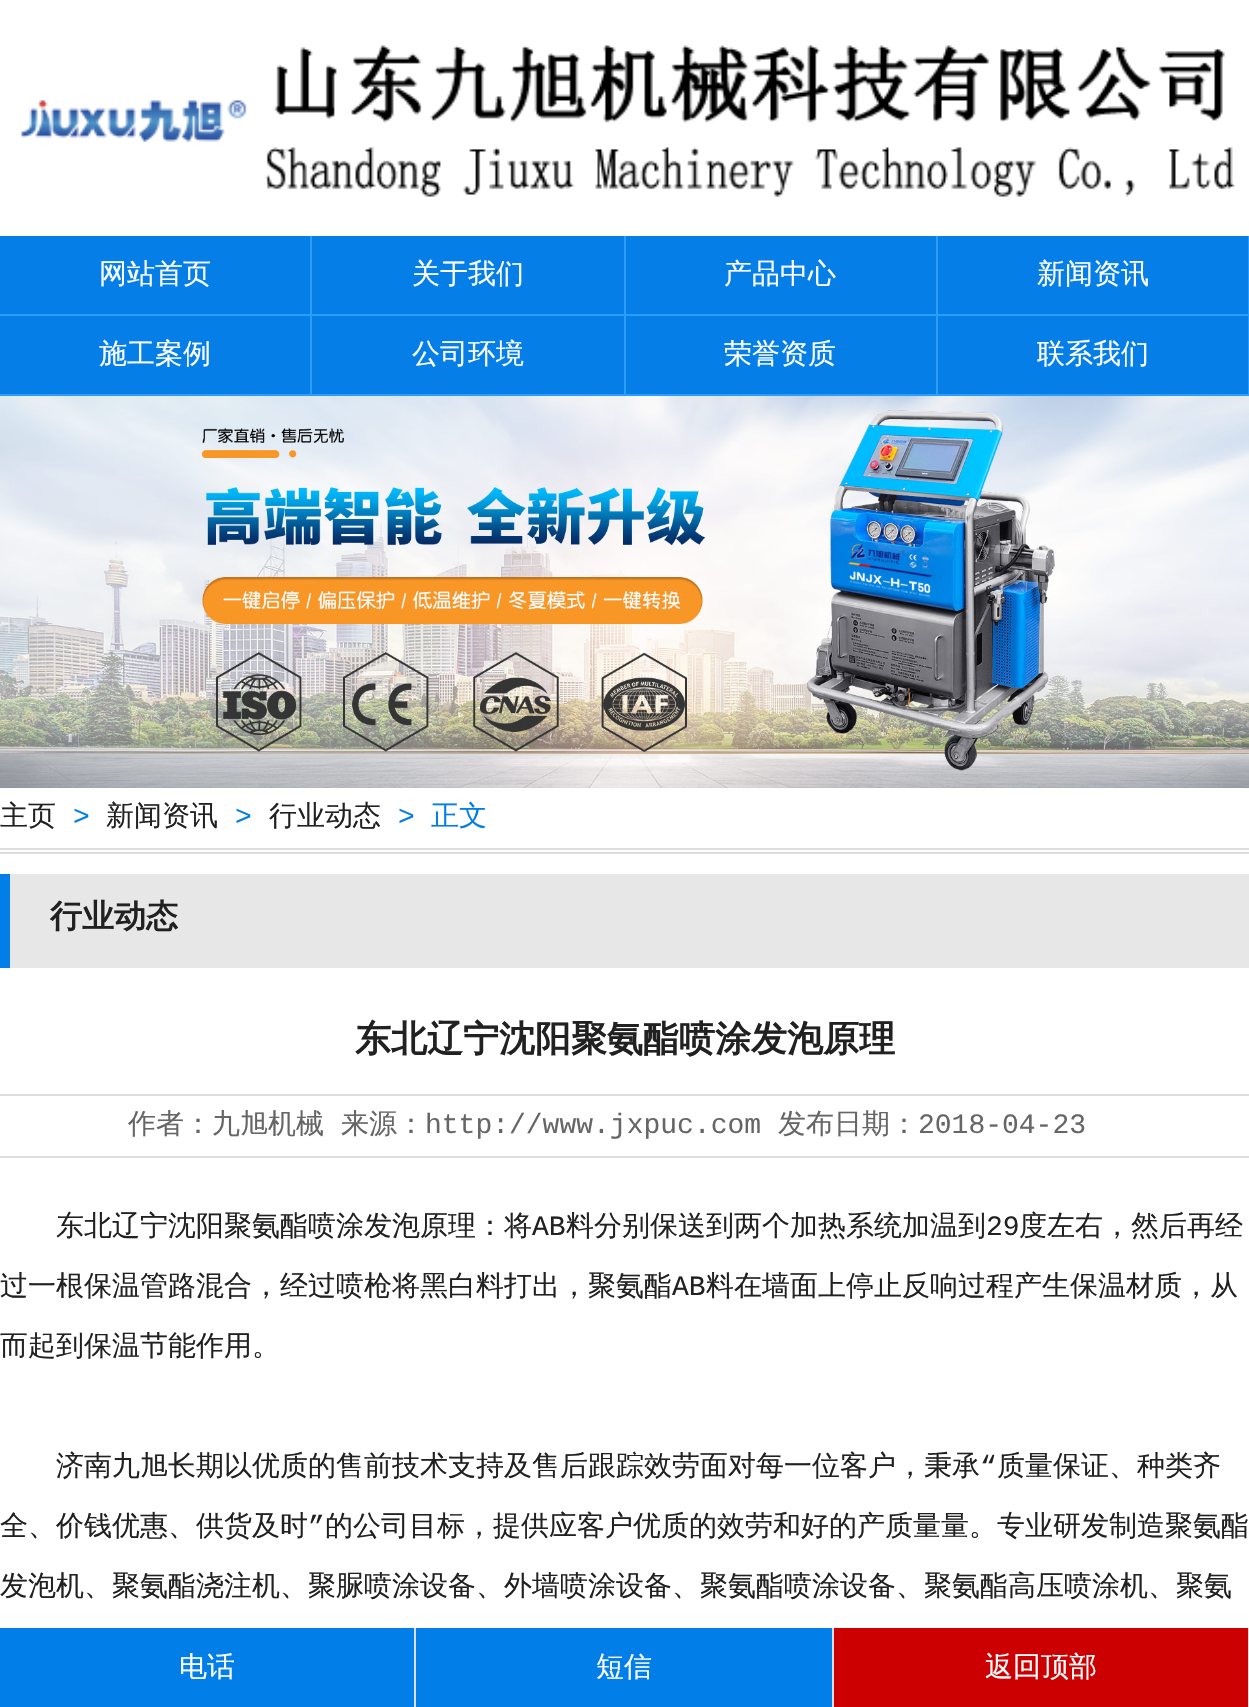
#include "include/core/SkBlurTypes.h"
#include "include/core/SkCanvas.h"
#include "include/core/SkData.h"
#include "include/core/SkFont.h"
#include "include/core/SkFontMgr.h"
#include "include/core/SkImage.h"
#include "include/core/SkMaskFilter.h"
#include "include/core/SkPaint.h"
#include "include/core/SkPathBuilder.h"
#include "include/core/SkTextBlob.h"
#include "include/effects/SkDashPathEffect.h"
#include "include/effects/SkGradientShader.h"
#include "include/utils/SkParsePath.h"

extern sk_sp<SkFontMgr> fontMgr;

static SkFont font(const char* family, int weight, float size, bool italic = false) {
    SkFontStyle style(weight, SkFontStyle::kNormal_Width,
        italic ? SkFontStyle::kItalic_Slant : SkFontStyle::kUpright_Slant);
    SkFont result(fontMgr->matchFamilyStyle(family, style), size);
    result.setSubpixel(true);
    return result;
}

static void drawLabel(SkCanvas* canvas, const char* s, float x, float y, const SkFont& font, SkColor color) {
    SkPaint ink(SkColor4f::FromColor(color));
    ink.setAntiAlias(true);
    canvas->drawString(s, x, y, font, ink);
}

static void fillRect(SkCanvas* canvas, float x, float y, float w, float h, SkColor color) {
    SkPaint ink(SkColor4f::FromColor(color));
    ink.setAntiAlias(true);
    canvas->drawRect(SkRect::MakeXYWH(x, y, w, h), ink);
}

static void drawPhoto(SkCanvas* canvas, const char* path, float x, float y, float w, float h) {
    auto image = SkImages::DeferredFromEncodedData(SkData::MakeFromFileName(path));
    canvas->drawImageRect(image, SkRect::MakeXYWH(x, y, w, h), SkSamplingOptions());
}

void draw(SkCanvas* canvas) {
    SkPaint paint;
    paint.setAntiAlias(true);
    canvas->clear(0xFFFFFFFF);
    drawPhoto(canvas, "assets/img1.png", 21, 45, 1214, 152);
    fillRect(canvas, 0, 236, 1248, 158, 0xFF057FE7);
    fillRect(canvas, 310, 236, 2, 160, 0xFF2B9DFF);
    fillRect(canvas, 0, 314, 312, 2, 0xFF2B9DFF);
    SkFont font1 = font("WenQuanYi Zen Hei", 500, 28);
    drawLabel(canvas, "网站首页", 99, 283, font1, 0xFFFFFFFF);
    fillRect(canvas, 624, 236, 2, 160, 0xFF2B9DFF);
    fillRect(canvas, 312, 314, 314, 2, 0xFF2B9DFF);
    drawLabel(canvas, "关于我们", 412, 283, font1, 0xFFFFFFFF);
    fillRect(canvas, 936, 236, 2, 160, 0xFF2B9DFF);
    fillRect(canvas, 626, 314, 312, 2, 0xFF2B9DFF);
    drawLabel(canvas, "产品中心", 724, 283, font1, 0xFFFFFFFF);
    fillRect(canvas, 1248, 236, 1, 160, 0xFF2B9DFF);
    fillRect(canvas, 938, 314, 311, 2, 0xFF2B9DFF);
    drawLabel(canvas, "新闻资讯", 1037, 283, font1, 0xFFFFFFFF);
    fillRect(canvas, 0, 394, 1249, 2, 0xFF2B9DFF);
    drawLabel(canvas, "施工案例", 99, 363, font1, 0xFFFFFFFF);
    drawLabel(canvas, "公司环境", 412, 363, font1, 0xFFFFFFFF);
    drawLabel(canvas, "荣誉资质", 724, 363, font1, 0xFFFFFFFF);
    drawLabel(canvas, "联系我们", 1037, 363, font1, 0xFFFFFFFF);
    drawPhoto(canvas, "assets/img2.png", 0, 396, 1249, 392);
    fillRect(canvas, 0, 848, 1249, 2, 0xFFDDDDDD);
    fillRect(canvas, 0, 852, 1249, 2, 0xFFDDDDDD);
    drawLabel(canvas, "主页", 0, 825, font1, 0xFF212121);
    SkFont font2 = font("Liberation Mono", 400, 28);
    drawLabel(canvas, ">", 73, 825, font2, 0xFF017EE8);
    drawLabel(canvas, "新闻资讯", 106, 825, font1, 0xFF212121);
    drawLabel(canvas, ">", 235, 825, font2, 0xFF017EE8);
    drawLabel(canvas, "行业动态", 269, 825, font1, 0xFF212121);
    drawLabel(canvas, ">", 398, 825, font2, 0xFF017EE8);
    drawLabel(canvas, "正文", 431, 825, font1, 0xFF017EE8);
    fillRect(canvas, 10, 874, 1239, 94, 0xFFE7E7E7);
    fillRect(canvas, 0, 874, 10, 94, 0xFF017EE8);
    SkFont font3 = font("WenQuanYi Zen Hei", 700, 32);
    drawLabel(canvas, "行业动态", 50, 927, font3, 0xFF212121);
    SkFont font4 = font("WenQuanYi Zen Hei", 700, 36);
    drawLabel(canvas, "东北辽宁沈阳聚氨酯喷涂发泡原理", 355, 1051, font4, 0xFF212121);
    fillRect(canvas, 0, 1094, 1249, 2, 0xFFDDDDDD);
    fillRect(canvas, 0, 1156, 1249, 2, 0xFFDDDDDD);
    drawLabel(canvas, "作者：九旭机械", 128, 1133, font1, 0xFF666666);
    drawLabel(canvas, "来源：", 341, 1133, font1, 0xFF666666);
    drawLabel(canvas, "http://www.jxpuc.com", 425, 1133, font2, 0xFF666666);
    drawLabel(canvas, "发布日期：", 778, 1133, font1, 0xFF666666);
    drawLabel(canvas, "2018-04-23", 918, 1133, font2, 0xFF666666);
    drawLabel(canvas, "东北辽宁沈阳聚氨酯喷涂发泡原理：将", 56, 1235, font1, 0xFF212121);
    drawLabel(canvas, "AB", 532, 1235, font2, 0xFF212121);
    drawLabel(canvas, "料分别保送到两个加热系统加温到", 566, 1235, font1, 0xFF212121);
    drawLabel(canvas, "29", 986, 1235, font2, 0xFF212121);
    drawLabel(canvas, "度左右，然后再经", 1019, 1235, font1, 0xFF212121);
    drawLabel(canvas, "过一根保温管路混合，经过喷枪将黑白料打出，聚氨酯", 0, 1295, font1, 0xFF212121);
    drawLabel(canvas, "AB", 672, 1295, font2, 0xFF212121);
    drawLabel(canvas, "料在墙面上停止反响过程产生保温材质，从", 706, 1295, font1, 0xFF212121);
    drawLabel(canvas, "而起到保温节能作用。", 0, 1355, font1, 0xFF212121);
    drawLabel(canvas, "济南九旭长期以优质的售前技术支持及售后跟踪效劳面对每一位客户，秉承", 56, 1475, font1, 0xFF212121);
    drawLabel(canvas, "“", 980, 1475, font2, 0xFF212121);
    drawLabel(canvas, "质量保证、种类齐", 997, 1475, font1, 0xFF212121);
    drawLabel(canvas, "全、价钱优惠、供货及时", 0, 1535, font1, 0xFF212121);
    drawLabel(canvas, "”", 308, 1535, font2, 0xFF212121);
    drawLabel(canvas, "的公司目标，提供应客户优质的效劳和好的产质量量。专业研发制造聚氨酯", 325, 1535, font1, 0xFF212121);
    drawLabel(canvas, "发泡机、聚氨酯浇注机、聚脲喷涂设备、外墙喷涂设备、聚氨酯喷涂设备、聚氨酯高压喷涂机、聚氨", 0, 1595, font1, 0xFF212121);
    fillRect(canvas, 0, 1628, 832, 79, 0xFF017EE8);
    fillRect(canvas, 414, 1628, 2, 79, 0xFFDDDDDD);
    drawLabel(canvas, "电话", 179, 1676, font1, 0xFFFFFFFF);
    fillRect(canvas, 832, 1628, 2, 79, 0xFFDDDDDD);
    drawLabel(canvas, "短信", 596, 1676, font1, 0xFFFFFFFF);
    fillRect(canvas, 834, 1628, 414, 79, 0xFFCC0000);
    fillRect(canvas, 1248, 1628, 1, 79, 0xFFDDDDDD);
    drawLabel(canvas, "返回顶部", 985, 1676, font1, 0xFFFFFFFF);
}
